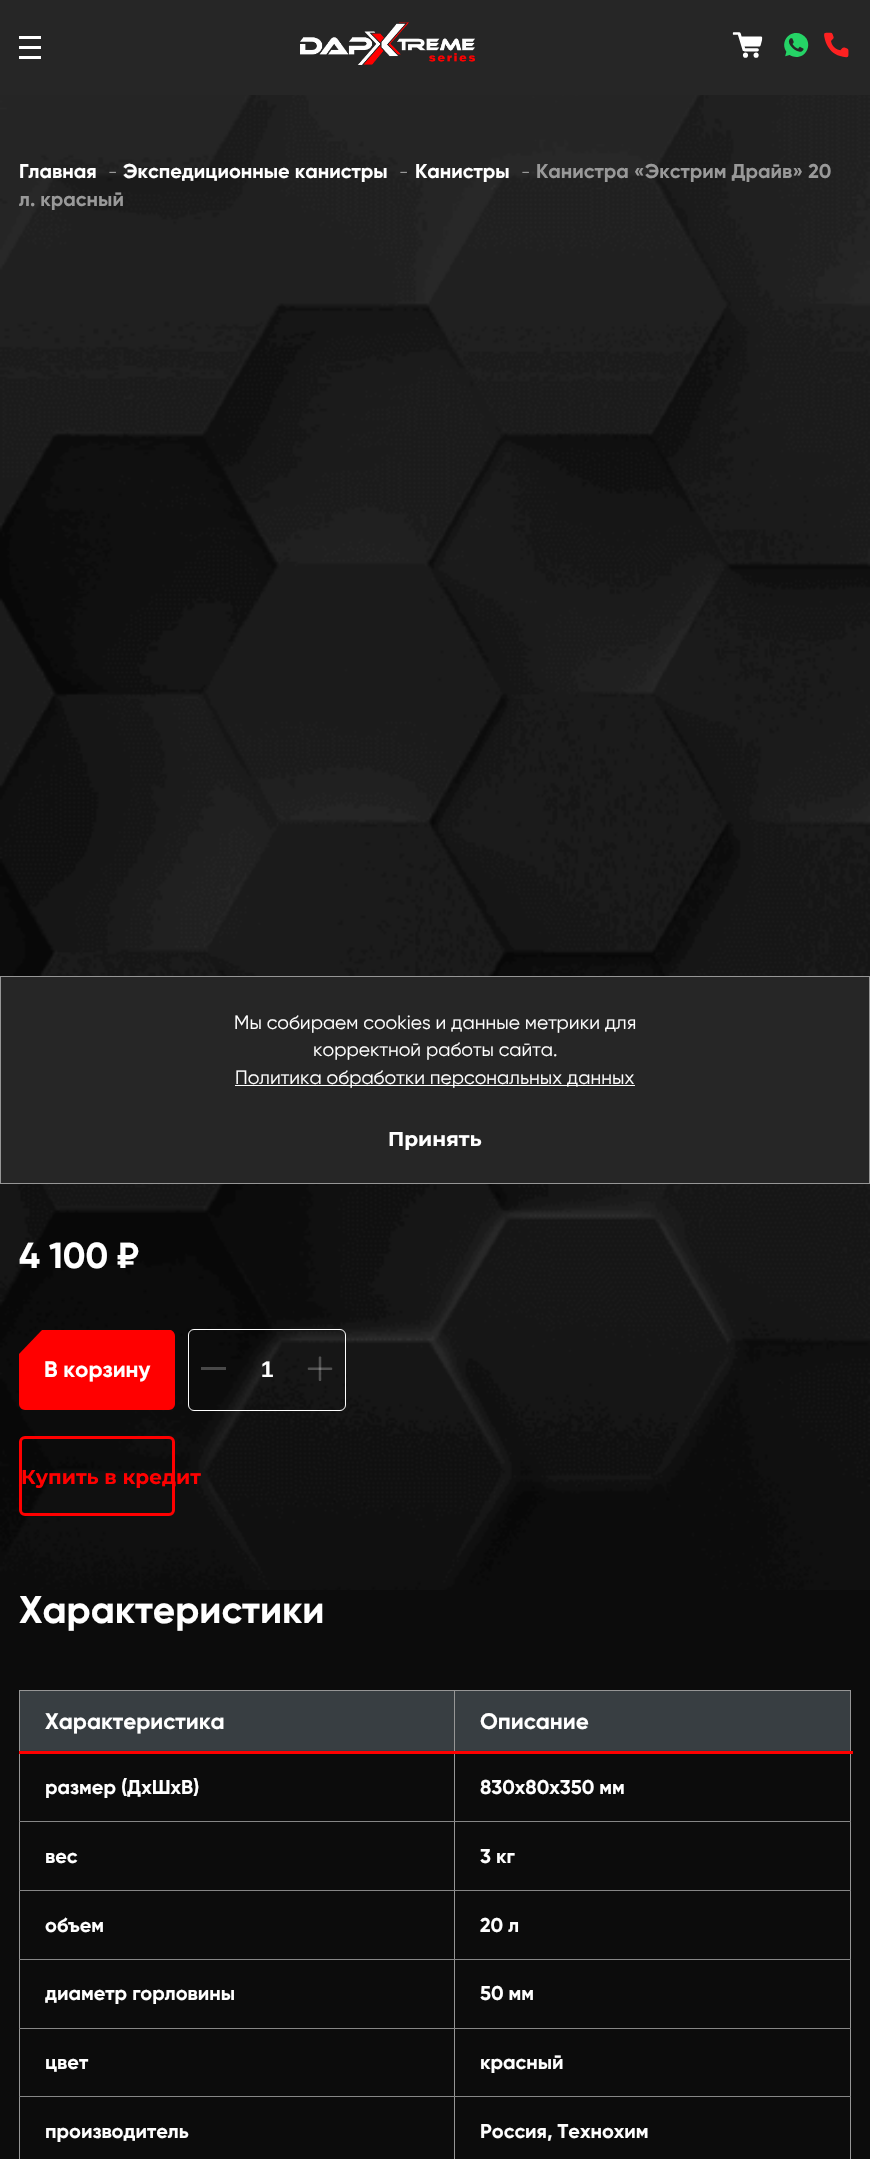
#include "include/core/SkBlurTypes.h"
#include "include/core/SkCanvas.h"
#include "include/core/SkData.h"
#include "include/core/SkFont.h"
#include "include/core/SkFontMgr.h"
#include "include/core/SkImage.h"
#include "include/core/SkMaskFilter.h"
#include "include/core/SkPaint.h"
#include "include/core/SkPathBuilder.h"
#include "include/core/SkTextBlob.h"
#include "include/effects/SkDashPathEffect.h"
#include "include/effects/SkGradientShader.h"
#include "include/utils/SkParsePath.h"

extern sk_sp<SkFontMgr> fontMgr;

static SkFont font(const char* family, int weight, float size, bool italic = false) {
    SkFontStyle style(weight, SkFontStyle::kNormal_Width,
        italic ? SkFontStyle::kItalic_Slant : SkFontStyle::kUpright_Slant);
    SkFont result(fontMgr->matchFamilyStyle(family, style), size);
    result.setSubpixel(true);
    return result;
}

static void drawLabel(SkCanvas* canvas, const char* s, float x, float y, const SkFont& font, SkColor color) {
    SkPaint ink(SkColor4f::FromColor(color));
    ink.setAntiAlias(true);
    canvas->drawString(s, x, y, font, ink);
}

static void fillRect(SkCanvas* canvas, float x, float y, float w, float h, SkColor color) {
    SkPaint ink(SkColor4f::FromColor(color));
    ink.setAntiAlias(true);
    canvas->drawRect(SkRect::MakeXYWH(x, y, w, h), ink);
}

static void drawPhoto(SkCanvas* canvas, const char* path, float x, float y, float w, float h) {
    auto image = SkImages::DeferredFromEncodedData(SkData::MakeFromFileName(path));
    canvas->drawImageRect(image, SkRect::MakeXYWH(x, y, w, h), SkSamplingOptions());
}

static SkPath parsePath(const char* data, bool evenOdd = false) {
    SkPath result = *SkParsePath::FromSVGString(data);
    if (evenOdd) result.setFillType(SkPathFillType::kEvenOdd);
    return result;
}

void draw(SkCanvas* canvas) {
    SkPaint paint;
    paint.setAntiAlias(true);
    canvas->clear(0xFF0C0C0C);
    drawPhoto(canvas, "assets/img1.png", 0, 95, 870, 1495);
    fillRect(canvas, 0, 0, 870, 95, 0xFF262626);
    fillRect(canvas, 19, 46, 22, 3, 0xFFFFFFFF);
    fillRect(canvas, 19, 36, 22, 3, 0xFFFFFFFF);
    fillRect(canvas, 19, 56, 22, 3, 0xFFFFFFFF);
    drawPhoto(canvas, "assets/img2.png", 300, 22, 175, 43);
    drawPhoto(canvas, "assets/img3.png", 732, 32, 31, 26);
    drawPhoto(canvas, "assets/img4.png", 784, 33, 25, 24);
    drawPhoto(canvas, "assets/img5.png", 824, 32, 25, 26);
    SkFont font1 = font("Gilroy", 700, 20);
    drawLabel(canvas, "Главная", 19, 178, font1, 0xFFFFFFFF);
    SkFont font2 = font("Gilroy", 400, 18);
    drawLabel(canvas, "-", 108, 178, font2, 0xFF999999);
    drawLabel(canvas, "Экспедиционные канистры", 123, 178, font1, 0xFFFFFFFF);
    drawLabel(canvas, "-", 399, 178, font2, 0xFF999999);
    drawLabel(canvas, "Канистры", 415, 178, font1, 0xFFFFFFFF);
    drawLabel(canvas, "-", 521, 178, font2, 0xFF999999);
    drawLabel(canvas, "Канистра «Экстрим Драйв» 20", 536, 178, font1, 0xFF999999);
    drawLabel(canvas, "л. красный", 19, 206, font1, 0xFF999999);
    SkFont font3 = font("Gilroy", 700, 36);
    drawLabel(canvas, "4 100 ₽", 19, 1268, font3, 0xFFFFFFFF);
    paint.setColor(0xFFFF0000);
    canvas->drawPath(parsePath("M42 1330H171C173 1331 175 1333 175 1336V1404C175 1407 172 1410 169 1410H25C22 1410 19 1407 19 1404V1354Z"), paint);
    SkFont font4 = font("Gilroy", 700, 22.5f);
    drawLabel(canvas, "В корзину", 44, 1377, font4, 0xFFFFFFFF);
    paint.setStroke(true);
    paint.setStrokeWidth(1);
    paint.setColor(0xFFFFFFFF);
    canvas->drawRoundRect(SkRect::MakeXYWH(188.5f, 1329.5f, 157, 81), 5.5f, 5.5f, paint);
    fillRect(canvas, 201, 1367, 25, 3, 0xFF494949);
    SkFont font5 = font("Liberation Sans", 700, 22.5f);
    drawLabel(canvas, "1", 261, 1377, font5, 0xFFFFFFFF);
    drawPhoto(canvas, "assets/img6.png", 307, 1356, 26, 25);
    paint.setStrokeWidth(3);
    paint.setColor(0xFFFF0000);
    canvas->drawRoundRect(SkRect::MakeXYWH(20.5f, 1437.5f, 153, 77), 4.5f, 4.5f, paint);
    SkFont font6 = font("Montserrat", 700, 20);
    drawLabel(canvas, "Купить в кредит", 21, 1484, font6, 0xFFFF0000);
    SkFont font7 = font("Gilroy", 700, 38.5f);
    drawLabel(canvas, "Характеристики", 19, 1623, font7, 0xFFFFFFFF);
    fillRect(canvas, 19, 1690, 832, 1, 0xFF969696);
    fillRect(canvas, 850, 1690, 1, 469, 0xFF969696);
    fillRect(canvas, 19, 1690, 1, 469, 0xFF969696);
    fillRect(canvas, 20, 1691, 434, 60, 0xFF383E42);
    drawLabel(canvas, "Характеристика", 45, 1729, font4, 0xFFFFFFFF);
    fillRect(canvas, 455, 1691, 395, 60, 0xFF383E42);
    fillRect(canvas, 454, 2096, 1, 63, 0xFF969696);
    fillRect(canvas, 454, 2096, 397, 1, 0xFF878787);
    fillRect(canvas, 454, 2028, 1, 70, 0xFF969696);
    fillRect(canvas, 454, 2028, 397, 1, 0xFF878787);
    fillRect(canvas, 454, 1959, 1, 70, 0xFF969696);
    fillRect(canvas, 454, 1959, 397, 1, 0xFF878787);
    fillRect(canvas, 454, 1890, 1, 70, 0xFF969696);
    fillRect(canvas, 454, 1890, 397, 1, 0xFF878787);
    fillRect(canvas, 454, 1821, 1, 70, 0xFF969696);
    fillRect(canvas, 454, 1821, 397, 1, 0xFF878787);
    fillRect(canvas, 454, 1690, 1, 133, 0xFF969696);
    fillRect(canvas, 19, 1751, 834, 3, 0xFFFF0000);
    drawLabel(canvas, "Описание", 480, 1729, font4, 0xFFFFFFFF);
    fillRect(canvas, 19, 1821, 436, 1, 0xFF878787);
    drawLabel(canvas, "размер (ДхШхВ)", 45, 1794, font1, 0xFFFFFFFF);
    drawLabel(canvas, "830х80х350 мм", 480, 1794, font1, 0xFFFFFFFF);
    fillRect(canvas, 19, 1890, 436, 1, 0xFF878787);
    drawLabel(canvas, "вес", 45, 1863, font1, 0xFFFFFFFF);
    drawLabel(canvas, "3 кг", 480, 1863, font1, 0xFFFFFFFF);
    fillRect(canvas, 19, 1959, 436, 1, 0xFF878787);
    drawLabel(canvas, "объем", 45, 1932, font1, 0xFFFFFFFF);
    drawLabel(canvas, "20 л", 480, 1932, font1, 0xFFFFFFFF);
    fillRect(canvas, 19, 2028, 436, 1, 0xFF878787);
    drawLabel(canvas, "диаметр горловины", 45, 2000, font1, 0xFFFFFFFF);
    drawLabel(canvas, "50 мм", 480, 2000, font1, 0xFFFFFFFF);
    fillRect(canvas, 19, 2096, 436, 1, 0xFF878787);
    drawLabel(canvas, "цвет", 45, 2069, font1, 0xFFFFFFFF);
    drawLabel(canvas, "красный", 480, 2069, font1, 0xFFFFFFFF);
    drawLabel(canvas, "производитель", 45, 2138, font1, 0xFFFFFFFF);
    drawLabel(canvas, "Россия, Технохим", 480, 2138, font1, 0xFFFFFFFF);
    paint.setStroke(false);
    paint.setColor(0xFF262626);
    canvas->drawRect(SkRect::MakeXYWH(0.5f, 976.5f, 869, 207), paint);
    paint.setStroke(true);
    paint.setStrokeWidth(1);
    paint.setColor(0xFF969696);
    canvas->drawRect(SkRect::MakeXYWH(0.5f, 976.5f, 869, 207), paint);
    SkFont font8 = font("Gilroy", 400, 19.25f);
    drawLabel(canvas, "Мы собираем cookies и данные метрики для", 234, 1029, font8, 0xFFFFFFFF);
    drawLabel(canvas, "корректной работы сайта.", 313, 1056, font8, 0xFFFFFFFF);
    fillRect(canvas, 235, 1085, 400, 1, 0xFFFFFFFF);
    drawLabel(canvas, "Политика обработки персональных данных", 235, 1084, font8, 0xFFFFFFFF);
    drawLabel(canvas, "Принять", 388, 1146, font6, 0xFFFFFFFF);
}
